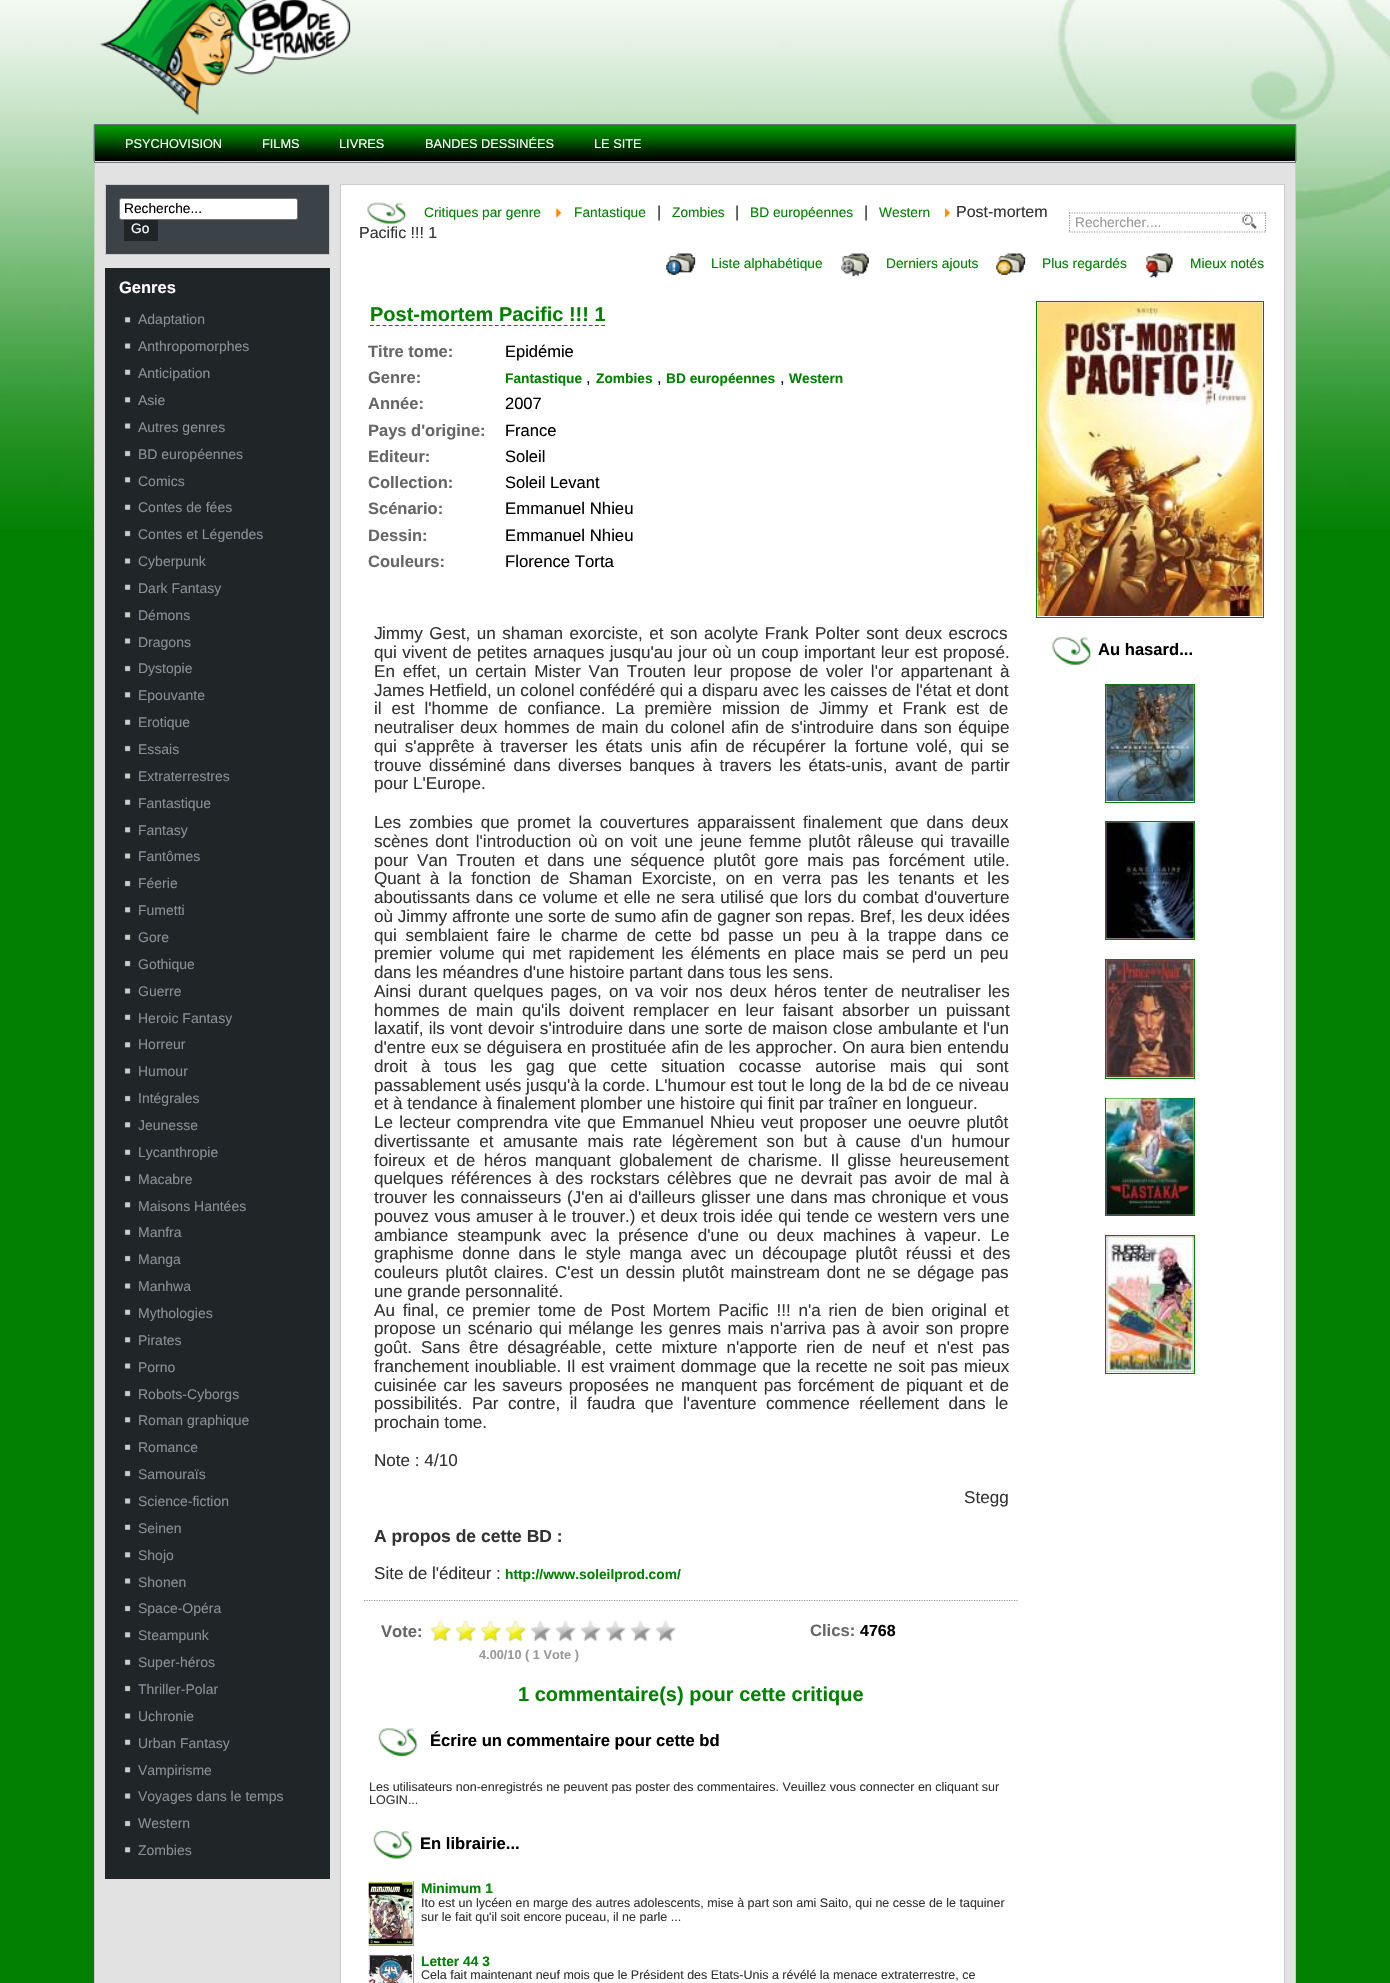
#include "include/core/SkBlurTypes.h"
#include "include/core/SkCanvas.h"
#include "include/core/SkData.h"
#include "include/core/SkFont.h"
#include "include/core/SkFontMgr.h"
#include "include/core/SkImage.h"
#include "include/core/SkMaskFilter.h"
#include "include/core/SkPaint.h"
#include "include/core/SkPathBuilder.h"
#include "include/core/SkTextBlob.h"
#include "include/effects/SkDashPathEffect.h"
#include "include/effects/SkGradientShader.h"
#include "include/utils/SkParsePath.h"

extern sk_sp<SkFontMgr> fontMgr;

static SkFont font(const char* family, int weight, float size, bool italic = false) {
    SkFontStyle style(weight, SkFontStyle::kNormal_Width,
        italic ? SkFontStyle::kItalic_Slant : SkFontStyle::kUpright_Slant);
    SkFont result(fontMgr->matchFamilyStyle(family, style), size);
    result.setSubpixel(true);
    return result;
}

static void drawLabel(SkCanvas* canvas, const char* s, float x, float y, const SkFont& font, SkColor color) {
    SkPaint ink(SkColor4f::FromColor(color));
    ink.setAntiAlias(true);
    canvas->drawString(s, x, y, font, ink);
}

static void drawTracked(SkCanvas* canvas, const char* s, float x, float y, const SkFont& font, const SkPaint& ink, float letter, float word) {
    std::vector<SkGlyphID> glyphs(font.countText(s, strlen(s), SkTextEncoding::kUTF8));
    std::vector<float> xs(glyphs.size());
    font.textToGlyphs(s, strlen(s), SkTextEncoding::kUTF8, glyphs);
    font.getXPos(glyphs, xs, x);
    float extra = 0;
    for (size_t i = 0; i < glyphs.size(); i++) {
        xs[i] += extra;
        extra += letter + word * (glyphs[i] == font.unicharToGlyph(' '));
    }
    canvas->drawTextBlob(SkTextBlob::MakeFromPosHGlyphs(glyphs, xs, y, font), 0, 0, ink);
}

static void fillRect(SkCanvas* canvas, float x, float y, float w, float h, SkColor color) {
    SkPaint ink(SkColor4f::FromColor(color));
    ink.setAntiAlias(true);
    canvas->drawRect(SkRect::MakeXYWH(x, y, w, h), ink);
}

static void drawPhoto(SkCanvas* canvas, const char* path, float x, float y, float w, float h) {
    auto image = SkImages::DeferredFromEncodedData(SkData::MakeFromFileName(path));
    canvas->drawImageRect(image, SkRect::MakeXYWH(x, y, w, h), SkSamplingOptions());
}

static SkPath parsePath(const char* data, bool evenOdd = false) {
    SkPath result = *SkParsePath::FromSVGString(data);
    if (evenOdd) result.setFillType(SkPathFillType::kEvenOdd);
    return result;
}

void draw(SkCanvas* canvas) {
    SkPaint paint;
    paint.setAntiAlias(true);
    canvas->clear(0xFF018001);
    drawPhoto(canvas, "assets/img1.png", 0, 0, 1390, 529);
    drawPhoto(canvas, "assets/img2.png", 100, 0, 251, 115);
    fillRect(canvas, 95, 161, 1200, 1822, 0xFFE2E2E2);
    paint.setStroke(true);
    paint.setStrokeWidth(1);
    paint.setColor(0xFFCCCCCC);
    canvas->drawRect(SkRect::MakeXYWH(94.5f, 124.5f, 1201, 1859), paint);
    drawPhoto(canvas, "assets/img3.png", 93, 124, 1204, 37);
    paint.setColor(0xFF6A7379);
    canvas->drawRect(SkRect::MakeXYWH(94.5f, 124.5f, 1201, 38), paint);
    SkFont font1 = font("Liberation Sans", 400, 12.75f);
    drawLabel(canvas, "PSYCHOVISION", 125, 148, font1, 0xFFFFFFFF);
    drawLabel(canvas, "FILMS", 262, 148, font1, 0xFFFFFFFF);
    drawLabel(canvas, "LIVRES", 339, 148, font1, 0xFFFFFFFF);
    drawLabel(canvas, "BANDES DESSINÉES", 425, 148, font1, 0xFFFFFFFF);
    drawLabel(canvas, "LE SITE", 594, 148, font1, 0xFFFFFFFF);
    paint.setStroke(false);
    paint.setColor(0xFF3B4348);
    canvas->drawRect(SkRect::MakeXYWH(105.5f, 184.5f, 224, 70), paint);
    paint.setStroke(true);
    paint.setColor(0xFFCCCCCC);
    canvas->drawRect(SkRect::MakeXYWH(105.5f, 184.5f, 224, 70), paint);
    paint.setStroke(false);
    paint.setColor(0xFFFFFFFF);
    canvas->drawRoundRect(SkRect::MakeXYWH(119.5f, 198.5f, 178, 21), 2, 2, paint);
    paint.setStroke(true);
    paint.setColor(0xFF767676);
    canvas->drawRoundRect(SkRect::MakeXYWH(119.5f, 198.5f, 178, 21), 2, 2, paint);
    SkFont font2 = font("Liberation Sans", 400, 13.75f);
    drawLabel(canvas, "Recherche...", 124, 213, font2, 0xFF000000);
    fillRect(canvas, 124, 220, 34, 21, 0xFF202528);
    drawLabel(canvas, "Go", 131, 233, font2, 0xFFFFFFFF);
    fillRect(canvas, 105, 268, 225, 1611, 0xFF202528);
    SkFont font3 = font("Liberation Sans", 700, 16.5f);
    drawLabel(canvas, "Genres", 119, 293, font3, 0xFFFFFFFF);
    drawPhoto(canvas, "assets/img4.png", 124, 317, 7, 6);
    SkFont font4 = font("Liberation Sans", 400, 14);
    drawLabel(canvas, "Adaptation", 138, 324, font4, 0xFF898F93);
    drawPhoto(canvas, "assets/img5.png", 124, 343, 7, 6);
    drawLabel(canvas, "Anthropomorphes", 138, 351, font4, 0xFF898F93);
    drawPhoto(canvas, "assets/img6.png", 124, 369, 7, 6);
    drawLabel(canvas, "Anticipation", 138, 378, font4, 0xFF898F93);
    drawPhoto(canvas, "assets/img4.png", 124, 397, 7, 6);
    drawLabel(canvas, "Asie", 138, 405, font4, 0xFF898F93);
    drawPhoto(canvas, "assets/img5.png", 124, 423, 7, 6);
    drawLabel(canvas, "Autres genres", 138, 432, font4, 0xFF898F93);
    drawPhoto(canvas, "assets/img7.png", 124, 450, 7, 7);
    drawLabel(canvas, "BD européennes", 138, 459, font4, 0xFF898F93);
    drawPhoto(canvas, "assets/img4.png", 124, 477, 7, 6);
    drawLabel(canvas, "Comics", 138, 486, font4, 0xFF898F93);
    drawPhoto(canvas, "assets/img6.png", 124, 504, 7, 6);
    drawLabel(canvas, "Contes de fées", 138, 512, font4, 0xFF898F93);
    drawPhoto(canvas, "assets/img7.png", 124, 530, 7, 7);
    drawLabel(canvas, "Contes et Légendes", 138, 539, font4, 0xFF898F93);
    drawPhoto(canvas, "assets/img5.png", 124, 558, 7, 6);
    drawLabel(canvas, "Cyberpunk", 138, 566, font4, 0xFF898F93);
    drawPhoto(canvas, "assets/img6.png", 124, 584, 7, 6);
    drawLabel(canvas, "Dark Fantasy", 138, 593, font4, 0xFF898F93);
    drawPhoto(canvas, "assets/img4.png", 124, 612, 7, 6);
    drawLabel(canvas, "Démons", 138, 620, font4, 0xFF898F93);
    drawPhoto(canvas, "assets/img5.png", 124, 638, 7, 6);
    drawLabel(canvas, "Dragons", 138, 647, font4, 0xFF898F93);
    drawPhoto(canvas, "assets/img7.png", 124, 665, 7, 7);
    drawLabel(canvas, "Dystopie", 138, 673, font4, 0xFF898F93);
    drawPhoto(canvas, "assets/img4.png", 124, 692, 7, 6);
    drawLabel(canvas, "Epouvante", 138, 700, font4, 0xFF898F93);
    drawPhoto(canvas, "assets/img6.png", 124, 719, 7, 6);
    drawLabel(canvas, "Erotique", 138, 727, font4, 0xFF898F93);
    drawPhoto(canvas, "assets/img7.png", 124, 745, 7, 7);
    drawLabel(canvas, "Essais", 138, 754, font4, 0xFF898F93);
    drawPhoto(canvas, "assets/img5.png", 124, 773, 7, 6);
    drawLabel(canvas, "Extraterrestres", 138, 781, font4, 0xFF898F93);
    drawPhoto(canvas, "assets/img6.png", 124, 799, 7, 6);
    drawLabel(canvas, "Fantastique", 138, 808, font4, 0xFF898F93);
    drawPhoto(canvas, "assets/img4.png", 124, 827, 7, 6);
    drawLabel(canvas, "Fantasy", 138, 835, font4, 0xFF898F93);
    drawPhoto(canvas, "assets/img5.png", 124, 853, 7, 6);
    drawLabel(canvas, "Fantômes", 138, 861, font4, 0xFF898F93);
    drawPhoto(canvas, "assets/img7.png", 124, 880, 7, 7);
    drawLabel(canvas, "Féerie", 138, 888, font4, 0xFF898F93);
    drawPhoto(canvas, "assets/img4.png", 124, 907, 7, 6);
    drawLabel(canvas, "Fumetti", 138, 915, font4, 0xFF898F93);
    drawPhoto(canvas, "assets/img6.png", 124, 934, 7, 6);
    drawLabel(canvas, "Gore", 138, 942, font4, 0xFF898F93);
    drawPhoto(canvas, "assets/img7.png", 124, 960, 7, 7);
    drawLabel(canvas, "Gothique", 138, 969, font4, 0xFF898F93);
    drawPhoto(canvas, "assets/img5.png", 124, 988, 7, 6);
    drawLabel(canvas, "Guerre", 138, 996, font4, 0xFF898F93);
    drawPhoto(canvas, "assets/img6.png", 124, 1014, 7, 6);
    drawLabel(canvas, "Heroic Fantasy", 138, 1023, font4, 0xFF898F93);
    drawPhoto(canvas, "assets/img4.png", 124, 1042, 7, 6);
    drawLabel(canvas, "Horreur", 138, 1049, font4, 0xFF898F93);
    drawPhoto(canvas, "assets/img5.png", 124, 1068, 7, 6);
    drawLabel(canvas, "Humour", 138, 1076, font4, 0xFF898F93);
    drawPhoto(canvas, "assets/img7.png", 124, 1095, 7, 7);
    drawLabel(canvas, "Intégrales", 138, 1103, font4, 0xFF898F93);
    drawPhoto(canvas, "assets/img4.png", 124, 1122, 7, 6);
    drawLabel(canvas, "Jeunesse", 138, 1130, font4, 0xFF898F93);
    drawPhoto(canvas, "assets/img6.png", 124, 1149, 7, 6);
    drawLabel(canvas, "Lycanthropie", 138, 1157, font4, 0xFF898F93);
    drawPhoto(canvas, "assets/img7.png", 124, 1175, 7, 7);
    drawLabel(canvas, "Macabre", 138, 1184, font4, 0xFF898F93);
    drawPhoto(canvas, "assets/img4.png", 124, 1202, 7, 6);
    drawLabel(canvas, "Maisons Hantées", 138, 1211, font4, 0xFF898F93);
    drawPhoto(canvas, "assets/img6.png", 124, 1229, 7, 6);
    drawLabel(canvas, "Manfra", 138, 1237, font4, 0xFF898F93);
    drawPhoto(canvas, "assets/img7.png", 124, 1255, 7, 7);
    drawLabel(canvas, "Manga", 138, 1264, font4, 0xFF898F93);
    drawPhoto(canvas, "assets/img5.png", 124, 1283, 7, 6);
    drawLabel(canvas, "Manhwa", 138, 1291, font4, 0xFF898F93);
    drawPhoto(canvas, "assets/img6.png", 124, 1309, 7, 6);
    drawLabel(canvas, "Mythologies", 138, 1318, font4, 0xFF898F93);
    drawPhoto(canvas, "assets/img4.png", 124, 1337, 7, 6);
    drawLabel(canvas, "Pirates", 138, 1345, font4, 0xFF898F93);
    drawPhoto(canvas, "assets/img5.png", 124, 1363, 7, 6);
    drawLabel(canvas, "Porno", 138, 1372, font4, 0xFF898F93);
    drawPhoto(canvas, "assets/img7.png", 124, 1390, 7, 7);
    drawLabel(canvas, "Robots-Cyborgs", 138, 1399, font4, 0xFF898F93);
    drawPhoto(canvas, "assets/img4.png", 124, 1417, 7, 6);
    drawLabel(canvas, "Roman graphique", 138, 1425, font4, 0xFF898F93);
    drawPhoto(canvas, "assets/img6.png", 124, 1444, 7, 6);
    drawLabel(canvas, "Romance", 138, 1452, font4, 0xFF898F93);
    drawPhoto(canvas, "assets/img7.png", 124, 1470, 7, 7);
    drawLabel(canvas, "Samouraïs", 138, 1479, font4, 0xFF898F93);
    drawPhoto(canvas, "assets/img8.png", 124, 1498, 7, 6);
    drawLabel(canvas, "Science-fiction", 138, 1506, font4, 0xFF898F93);
    drawPhoto(canvas, "assets/img6.png", 124, 1524, 7, 6);
    drawLabel(canvas, "Seinen", 138, 1533, font4, 0xFF898F93);
    drawPhoto(canvas, "assets/img4.png", 124, 1552, 7, 6);
    drawLabel(canvas, "Shojo", 138, 1560, font4, 0xFF898F93);
    drawPhoto(canvas, "assets/img5.png", 124, 1578, 7, 6);
    drawLabel(canvas, "Shonen", 138, 1587, font4, 0xFF898F93);
    drawPhoto(canvas, "assets/img7.png", 124, 1605, 7, 7);
    drawLabel(canvas, "Space-Opéra", 138, 1613, font4, 0xFF898F93);
    drawPhoto(canvas, "assets/img4.png", 124, 1632, 7, 6);
    drawLabel(canvas, "Steampunk", 138, 1640, font4, 0xFF898F93);
    drawPhoto(canvas, "assets/img6.png", 124, 1659, 7, 6);
    drawLabel(canvas, "Super-héros", 138, 1667, font4, 0xFF898F93);
    drawPhoto(canvas, "assets/img7.png", 124, 1685, 7, 7);
    drawLabel(canvas, "Thriller-Polar", 138, 1694, font4, 0xFF898F93);
    drawPhoto(canvas, "assets/img5.png", 124, 1713, 7, 6);
    drawLabel(canvas, "Uchronie", 138, 1721, font4, 0xFF898F93);
    drawPhoto(canvas, "assets/img6.png", 124, 1739, 7, 6);
    drawLabel(canvas, "Urban Fantasy", 138, 1748, font4, 0xFF898F93);
    drawPhoto(canvas, "assets/img4.png", 124, 1767, 7, 6);
    drawLabel(canvas, "Vampirisme", 138, 1775, font4, 0xFF898F93);
    drawPhoto(canvas, "assets/img8.png", 124, 1793, 7, 6);
    drawLabel(canvas, "Voyages dans le temps", 138, 1801, font4, 0xFF898F93);
    drawPhoto(canvas, "assets/img7.png", 124, 1820, 7, 7);
    drawLabel(canvas, "Western", 138, 1828, font4, 0xFF898F93);
    drawPhoto(canvas, "assets/img4.png", 124, 1847, 7, 6);
    drawLabel(canvas, "Zombies", 138, 1855, font4, 0xFF898F93);
    paint.setStroke(false);
    paint.setColor(0xFFFFFFFF);
    canvas->drawRect(SkRect::MakeXYWH(340.5f, 184.5f, 944, 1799), paint);
    paint.setStroke(true);
    paint.setColor(0xFFCCCCCC);
    canvas->drawRect(SkRect::MakeXYWH(340.5f, 184.5f, 944, 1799), paint);
    drawPhoto(canvas, "assets/img9.png", 367, 202, 40, 22);
    drawLabel(canvas, "Critiques par genre", 424, 217, font2, 0xFF018001);
    drawPhoto(canvas, "assets/img10.png", 556, 208, 6, 10);
    drawLabel(canvas, "Fantastique", 574, 217, font2, 0xFF018001);
    SkFont font5 = font("Liberation Sans", 400, 16);
    drawLabel(canvas, "|", 657, 217, font5, 0xFF333333);
    drawLabel(canvas, "Zombies", 672, 217, font2, 0xFF018001);
    drawLabel(canvas, "|", 735, 217, font5, 0xFF333333);
    drawLabel(canvas, "BD européennes", 750, 217, font2, 0xFF018001);
    drawLabel(canvas, "|", 864, 217, font5, 0xFF333333);
    drawLabel(canvas, "Western", 879, 217, font2, 0xFF018001);
    drawPhoto(canvas, "assets/img11.png", 944, 208, 7, 10);
    drawLabel(canvas, "Post-mortem", 956, 217, font5, 0xFF333333);
    drawLabel(canvas, "Pacific !!! 1", 359, 238, font5, 0xFF333333);
    drawPhoto(canvas, "assets/img12.png", 1242, 214, 15, 15);
    paint.setStrokeWidth(1.2f);
    paint.setColor(0xFF999999);
    paint.setPathEffect(SkDashPathEffect::Make({{1.25f, 1.25f}}, 0));
    canvas->drawPath(parsePath("M1069 213H1266"), paint);
    paint.setPathEffect(nullptr);
    paint.setPathEffect(SkDashPathEffect::Make({{1.25f, 1.25f}}, 0));
    canvas->drawPath(parsePath("M1265.5 212.5V232.5"), paint);
    paint.setPathEffect(nullptr);
    paint.setPathEffect(SkDashPathEffect::Make({{1.25f, 1.25f}}, 0));
    canvas->drawPath(parsePath("M1069 232H1266"), paint);
    paint.setPathEffect(nullptr);
    paint.setPathEffect(SkDashPathEffect::Make({{1.25f, 1.25f}}, 0));
    canvas->drawPath(parsePath("M1069.5 212.5V232.5"), paint);
    paint.setPathEffect(nullptr);
    drawLabel(canvas, "Rechercher....", 1075, 227, font2, 0xFF999999);
    drawPhoto(canvas, "assets/img13.png", 666, 253, 30, 22);
    drawLabel(canvas, "Liste alphabétique", 711, 268, font2, 0xFF018001);
    drawPhoto(canvas, "assets/img14.png", 841, 253, 28, 24);
    drawLabel(canvas, "Derniers ajouts", 886, 268, font2, 0xFF018001);
    drawPhoto(canvas, "assets/img15.png", 996, 253, 30, 22);
    drawLabel(canvas, "Plus regardés", 1042, 268, font2, 0xFF018001);
    drawPhoto(canvas, "assets/img16.png", 1146, 253, 27, 25);
    drawLabel(canvas, "Mieux notés", 1190, 268, font2, 0xFF018001);
    SkFont font6 = font("Liberation Sans", 700, 20);
    drawLabel(canvas, "Post-mortem Pacific !!! 1", 370, 321, font6, 0xFF018001);
    paint.setColor(0xFF018001);
    paint.setPathEffect(SkDashPathEffect::Make({{3.75f, 2.5f}}, 0));
    canvas->drawPath(parsePath("M370 325.5H605"), paint);
    paint.setPathEffect(nullptr);
    drawLabel(canvas, "Titre tome:", 368, 357, font3, 0xFF666666);
    SkFont font7 = font("Liberation Sans", 400, 16.5f);
    drawLabel(canvas, "Epidémie", 505, 357, font7, 0xFF000000);
    drawLabel(canvas, "Genre:", 368, 383, font3, 0xFF666666);
    SkFont font8 = font("Liberation Sans", 700, 13.75f);
    drawLabel(canvas, "Fantastique", 505, 383, font8, 0xFF018001);
    drawLabel(canvas, ",", 586, 383, font7, 0xFF000000);
    drawLabel(canvas, "Zombies", 596, 383, font8, 0xFF018001);
    drawLabel(canvas, ",", 657, 383, font7, 0xFF000000);
    drawLabel(canvas, "BD européennes", 666, 383, font8, 0xFF018001);
    drawLabel(canvas, ",", 780, 383, font7, 0xFF000000);
    drawLabel(canvas, "Western", 789, 383, font8, 0xFF018001);
    drawLabel(canvas, "Année:", 368, 409, font3, 0xFF666666);
    drawLabel(canvas, "2007", 505, 409, font7, 0xFF000000);
    drawLabel(canvas, "Pays d'origine:", 368, 436, font3, 0xFF666666);
    drawLabel(canvas, "France", 505, 436, font7, 0xFF000000);
    drawLabel(canvas, "Editeur:", 368, 462, font3, 0xFF666666);
    drawLabel(canvas, "Soleil", 505, 462, font7, 0xFF000000);
    drawLabel(canvas, "Collection:", 368, 488, font3, 0xFF666666);
    drawLabel(canvas, "Soleil Levant", 505, 488, font7, 0xFF000000);
    drawLabel(canvas, "Scénario:", 368, 514, font3, 0xFF666666);
    SkFont font9 = font("Liberation Sans", 400, 16.75f);
    drawLabel(canvas, "Emmanuel Nhieu", 505, 514, font9, 0xFF000000);
    drawLabel(canvas, "Dessin:", 368, 541, font3, 0xFF666666);
    drawLabel(canvas, "Emmanuel Nhieu", 505, 541, font9, 0xFF000000);
    drawLabel(canvas, "Couleurs:", 368, 567, font3, 0xFF666666);
    drawLabel(canvas, "Florence Torta", 505, 567, font9, 0xFF000000);
    SkFont font10 = font("Liberation Sans", 400, 17.5f);
    drawLabel(canvas, "J", 374, 639, font10, 0xFF333333);
    SkFont font11 = font("Liberation Sans", 400, 17.1f);
    paint.setStroke(false);
    paint.setColor(0xFF333333);
    drawTracked(canvas, "immy Gest, un shaman exorciste, et son acolyte Frank Polter sont deux escrocs", 382, 639, font11, paint, 0, 1.75f);
    drawTracked(canvas, "qui vivent de petites arnaques jusqu'au jour où un coup important leur est proposé.", 374, 658, font11, paint, 0, 0.75f);
    drawTracked(canvas, "En effet, un certain Mister Van Trouten leur propose de voler l'or appartenant à", 374, 677, font11, paint, 0, 3);
    drawLabel(canvas, "James Hetfield, un colonel confédéré qui a disparu avec les caisses de l'état et dont", 374, 696, font11, 0xFF333333);
    drawTracked(canvas, "il est l'homme de confiance. La première mission de Jimmy et Frank est de", 374, 714, font11, paint, 0, 5.25f);
    drawTracked(canvas, "neutraliser deux hommes de main du colonel afin de s'introduire dans son équipe", 374, 733, font11, paint, 0, 1.75f);
    drawTracked(canvas, "qui s'apprête à traverser les états unis afin de récupérer la fortune volé, qui se", 374, 752, font11, paint, 0, 3.25f);
    drawTracked(canvas, "trouve disséminé dans diverses banques à travers les états-unis, avant de partir", 374, 771, font11, paint, 0, 2.75f);
    drawLabel(canvas, "pour L'Europe.", 374, 789, font11, 0xFF333333);
    drawLabel(canvas, "L", 374, 828, font10, 0xFF333333);
    drawTracked(canvas, "es zombies que promet la couvertures apparaissent finalement que dans deux", 383, 828, font11, paint, 0, 3.25f);
    drawTracked(canvas, "scènes dont l'introduction où on voit une jeune femme plutôt râleuse qui travaille", 374, 847, font11, paint, 0, 2.4f);
    drawTracked(canvas, "pour Van Trouten et dans une séquence plutôt gore mais pas forcément utile.", 374, 866, font11, paint, 0, 4.1f);
    drawTracked(canvas, "Quant à la fonction de Shaman Exorciste, on en verra pas les tenants et les", 374, 884, font11, paint, 0, 4.5f);
    drawTracked(canvas, "aboutissants dans ce volume et elle ne sera utilisé que lors du combat d'ouverture", 374, 903, font11, paint, 0, 1.1f);
    drawLabel(canvas, "où Jimmy affronte une sorte de sumo afin de gagner son repas. Bref, les deux idées", 374, 922, font11, 0xFF333333);
    drawTracked(canvas, "qui semblaient faire le charme de cette bd passe un peu à la trappe dans ce", 374, 941, font11, paint, 0, 4);
    drawTracked(canvas, "premier volume qui met rapidement les éléments en place mais se perd un peu", 374, 959, font11, paint, 0, 2.75f);
    drawLabel(canvas, "dans les méandres d'une histoire partant dans tous les sens.", 374, 978, font11, 0xFF333333);
    drawTracked(canvas, "Ainsi durant quelques pages, on va voir nos deux héros tenter de neutraliser les", 374, 997, font11, paint, 0, 2.4f);
    drawTracked(canvas, "hommes de main qu'ils doivent remplacer en leur faisant absorber un puissant", 374, 1016, font11, paint, 0, 4);
    drawTracked(canvas, "laxatif, ils vont devoir s'introduire dans une sorte de maison close ambulante et l'un", 374, 1034, font11, paint, 0, 0.6f);
    drawTracked(canvas, "d'entre eux se déguisera en prostituée afin de les approcher. On aura bien entendu", 374, 1053, font11, paint, 0, 0.4f);
    drawTracked(canvas, "droit à tous les gag que cette situation cocasse autorise mais qui sont", 374, 1072, font11, paint, 0, 9);
    drawLabel(canvas, "passablement usés jusqu'à la corde. L'humour est tout le long de la bd de ce niveau", 374, 1091, font11, 0xFF333333);
    drawLabel(canvas, "et à tendance à finalement plomber une histoire qui finit par traîner en longueur.", 374, 1109, font11, 0xFF333333);
    drawTracked(canvas, "Le lecteur comprendra vite que Emmanuel Nhieu veut proposer une oeuvre plutôt", 374, 1128, font11, paint, 0, 1.5f);
    drawTracked(canvas, "divertissante et amusante mais rate légèrement son but à cause d'un humour", 374, 1147, font11, paint, 0, 4.6f);
    drawTracked(canvas, "foireux et de héros manquant globalement de charisme. Il glisse heureusement", 374, 1166, font11, paint, 0, 3.6f);
    drawTracked(canvas, "quelques références à des rockstars célèbres que ne devrait pas avoir de mal à", 374, 1184, font11, paint, 0, 2.5f);
    drawTracked(canvas, "trouver les connaisseurs (J'en ai d'ailleurs glisser une dans mas chronique et vous", 374, 1203, font11, paint, 0, 1);
    drawTracked(canvas, "pouvez vous amuser à le trouver.) et deux trois idée qui tende ce western vers une", 374, 1222, font11, paint, 0, 0.6f);
    drawTracked(canvas, "ambiance steampunk avec la présence d'une ou deux machines à vapeur. Le", 374, 1241, font11, paint, 0, 4.5f);
    drawTracked(canvas, "graphisme donne dans le style manga avec un découpage plutôt réussi et des", 374, 1259, font11, paint, 0, 3.75f);
    drawTracked(canvas, "couleurs plutôt claires. C'est un dessin plutôt mainstream dont ne se dégage pas", 374, 1278, font11, paint, 0, 2);
    drawLabel(canvas, "une grande personnalité.", 374, 1297, font11, 0xFF333333);
    drawTracked(canvas, "Au final, ce premier tome de Post Mortem Pacific !!! n'a rien de bien original et", 374, 1316, font11, paint, 0, 3);
    drawTracked(canvas, "propose un scénario qui mélange les genres mais n'arriva pas à avoir son propre", 374, 1334, font11, paint, 0, 1.75f);
    drawTracked(canvas, "goût. Sans être désagréable, cette mixture n'apporte rien de neuf et n'est pas", 374, 1353, font11, paint, 0, 4.25f);
    drawTracked(canvas, "franchement inoubliable. Il est vraiment dommage que la recette ne soit pas mieux", 374, 1372, font11, paint, 0, 0.9f);
    drawTracked(canvas, "cuisinée car les saveurs proposées ne manquent pas forcément de piquant et de", 374, 1391, font11, paint, 0, 1.9f);
    drawTracked(canvas, "possibilités. Par contre, il faudra que l'aventure commence réellement dans le", 374, 1409, font11, paint, 0, 4.75f);
    drawLabel(canvas, "prochain tome.", 374, 1428, font11, 0xFF333333);
    drawLabel(canvas, "Note : 4/10", 374, 1466, font11, 0xFF333333);
    drawLabel(canvas, "Stegg", 964, 1503, font11, 0xFF333333);
    SkFont font12 = font("Liberation Sans", 700, 17.5f);
    drawLabel(canvas, "A propos de cette BD :", 374, 1542, font12, 0xFF333333);
    drawLabel(canvas, "Site de l'éditeur :", 374, 1579, font11, 0xFF333333);
    drawLabel(canvas, "http://www.soleilprod.com/", 505, 1579, font8, 0xFF018001);
    paint.setStroke(true);
    paint.setColor(0xFF999999);
    paint.setPathEffect(SkDashPathEffect::Make({{1.25f, 1.25f}}, 0));
    canvas->drawPath(parsePath("M364 1600.5H1019"), paint);
    paint.setPathEffect(nullptr);
    SkFont font13 = font("Liberation Sans", 700, 16.6f);
    drawLabel(canvas, "Vote:", 381, 1637, font13, 0xFF666666);
    drawPhoto(canvas, "assets/img17.png", 431, 1620, 245, 22);
    drawPhoto(canvas, "assets/img18.png", 431, 1620, 96, 22);
    SkFont font14 = font("Liberation Sans", 700, 12.75f);
    drawLabel(canvas, "4.00/10 ( 1 Vote )", 479, 1659, font14, 0xFF999999);
    drawLabel(canvas, "Clics:", 810, 1636, font13, 0xFF666666);
    SkFont font15 = font("Liberation Sans", 700, 16);
    drawLabel(canvas, "4768", 860, 1636, font15, 0xFF000000);
    drawLabel(canvas, "1 commentaire(s) pour cette critique", 518, 1701, font6, 0xFF018001);
    drawPhoto(canvas, "assets/img19.png", 378, 1728, 40, 29);
    drawLabel(canvas, "Écrire un commentaire pour cette bd", 430, 1746, font13, 0xFF000000);
    SkFont font16 = font("Liberation Sans", 400, 12.5f);
    drawLabel(canvas, "Les utilisateurs non-enregistrés ne peuvent pas poster des commentaires. Veuillez vous connecter en cliquant sur", 369, 1791, font16, 0xFF333333);
    drawLabel(canvas, "LOGIN...", 369, 1804, font16, 0xFF333333);
    drawPhoto(canvas, "assets/img20.png", 373, 1830, 40, 29);
    drawLabel(canvas, "En librairie...", 420, 1849, font13, 0xFF000000);
    fillRect(canvas, 368, 1881, 46, 1, 0xFFFFEEFF);
    fillRect(canvas, 413, 1881, 1, 65, 0xFF9F9F9F);
    fillRect(canvas, 368, 1945, 46, 1, 0xFF939393);
    fillRect(canvas, 368, 1881, 1, 65, 0xFFFFEEFF);
    drawPhoto(canvas, "assets/img21.png", 368, 1882, 45, 63);
    drawLabel(canvas, "Minimum 1", 421, 1893, font8, 0xFF018001);
    drawLabel(canvas, "Ito est un lycéen en marge des autres adolescents, mise à part son ami Saito, qui ne cesse de le taquiner", 421, 1907, font16, 0xFF333333);
    drawLabel(canvas, "sur le fait qu'il soit encore puceau, il ne parle ...", 421, 1921, font16, 0xFF333333);
    fillRect(canvas, 368, 1954, 46, 1, 0xFFFFEEFF);
    fillRect(canvas, 368, 1954, 1, 29, 0xFFFFEEFF);
    drawPhoto(canvas, "assets/img22.png", 368, 1954, 45, 29);
    fillRect(canvas, 413, 1954, 1, 29, 0xFF9F9F9F);
    drawLabel(canvas, "Letter 44 3", 421, 1966, font8, 0xFF018001);
    drawLabel(canvas, "Cela fait maintenant neuf mois que le Président des Etats-Unis a révélé la menace extraterrestre, ce", 421, 1979, font16, 0xFF333333);
    paint.setStrokeWidth(1);
    paint.setColor(0xFF018001);
    canvas->drawRect(SkRect::MakeXYWH(1036.5f, 301.5f, 227, 316), paint);
    drawPhoto(canvas, "assets/img23.png", 1037, 302, 226, 314);
    drawPhoto(canvas, "assets/img24.png", 1052, 637, 40, 28);
    drawLabel(canvas, "Au hasard...", 1098, 655, font13, 0xFF000000);
    canvas->drawRect(SkRect::MakeXYWH(1105.5f, 684.5f, 89, 118), paint);
    drawPhoto(canvas, "assets/img25.png", 1106, 684, 88, 117);
    canvas->drawRect(SkRect::MakeXYWH(1105.5f, 821.5f, 89, 118), paint);
    drawPhoto(canvas, "assets/img26.png", 1106, 822, 88, 117);
    canvas->drawRect(SkRect::MakeXYWH(1105.5f, 959.5f, 89, 119), paint);
    drawPhoto(canvas, "assets/img27.png", 1106, 959, 88, 119);
    canvas->drawRect(SkRect::MakeXYWH(1105.5f, 1098.5f, 89, 117), paint);
    drawPhoto(canvas, "assets/img28.png", 1106, 1098, 88, 117);
    canvas->drawRect(SkRect::MakeXYWH(1105.5f, 1235.5f, 89, 138), paint);
    drawPhoto(canvas, "assets/img29.png", 1106, 1236, 88, 137);
}
